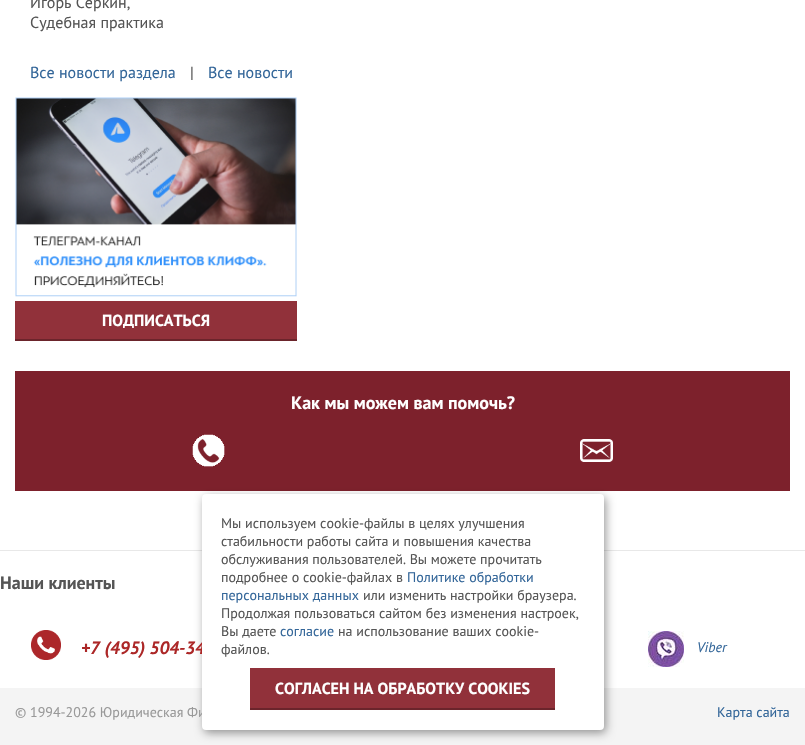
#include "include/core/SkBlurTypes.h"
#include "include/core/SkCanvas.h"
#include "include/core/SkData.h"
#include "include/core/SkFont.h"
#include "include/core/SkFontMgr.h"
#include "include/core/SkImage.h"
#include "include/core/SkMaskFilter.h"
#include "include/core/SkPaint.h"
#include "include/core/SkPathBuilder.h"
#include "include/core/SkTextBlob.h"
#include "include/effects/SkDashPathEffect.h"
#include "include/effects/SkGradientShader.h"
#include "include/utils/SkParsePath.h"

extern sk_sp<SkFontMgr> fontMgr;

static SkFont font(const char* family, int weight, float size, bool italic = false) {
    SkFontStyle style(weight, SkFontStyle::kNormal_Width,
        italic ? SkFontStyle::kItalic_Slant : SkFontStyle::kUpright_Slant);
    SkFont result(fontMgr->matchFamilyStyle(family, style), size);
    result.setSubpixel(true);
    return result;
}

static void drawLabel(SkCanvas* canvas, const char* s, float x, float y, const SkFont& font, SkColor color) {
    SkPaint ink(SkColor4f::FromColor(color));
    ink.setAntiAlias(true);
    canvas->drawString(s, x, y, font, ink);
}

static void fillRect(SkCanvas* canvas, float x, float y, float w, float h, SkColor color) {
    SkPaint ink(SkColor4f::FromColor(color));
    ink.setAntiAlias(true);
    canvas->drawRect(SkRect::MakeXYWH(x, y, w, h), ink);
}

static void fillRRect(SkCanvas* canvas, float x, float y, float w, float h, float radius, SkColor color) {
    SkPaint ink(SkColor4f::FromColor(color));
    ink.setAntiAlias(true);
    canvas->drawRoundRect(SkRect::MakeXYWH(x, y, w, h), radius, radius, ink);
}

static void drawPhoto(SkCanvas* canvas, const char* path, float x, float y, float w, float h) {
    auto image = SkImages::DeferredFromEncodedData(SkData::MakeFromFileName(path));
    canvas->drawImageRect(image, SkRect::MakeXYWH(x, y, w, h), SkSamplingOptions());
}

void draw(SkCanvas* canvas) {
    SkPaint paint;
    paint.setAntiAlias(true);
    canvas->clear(0xFFFFFFFF);
    SkFont font1 = font("PT Sans", 400, 16);
    drawLabel(canvas, "Игорь Серкин,", 30, 8, font1, 0xFF555555);
    drawLabel(canvas, "Судебная практика", 30, 28, font1, 0xFF555555);
    drawLabel(canvas, "Все новости раздела", 30, 78, font1, 0xFF336699);
    drawLabel(canvas, "|", 190, 78, font1, 0xFF555555);
    drawLabel(canvas, "Все новости", 208, 78, font1, 0xFF336699);
    drawPhoto(canvas, "assets/img1.png", 15, 97, 282, 200);
    fillRect(canvas, 15, 301, 282, 38, 0xFF91313A);
    fillRect(canvas, 15, 339, 282, 2, 0xFF6B242B);
    SkFont font2 = font("PT Sans", 700, 16);
    drawLabel(canvas, "ПОДПИСАТЬСЯ", 102, 326, font2, 0xFFFFFFFF);
    fillRect(canvas, 15, 371, 775, 120, 0xFF7D212C);
    SkFont font3 = font("PT Sans", 700, 18);
    drawLabel(canvas, "Как мы можем вам помочь?", 291, 409, font3, 0xFFFFFFFF);
    drawPhoto(canvas, "assets/img2.png", 192, 434, 33, 33);
    drawPhoto(canvas, "assets/img3.png", 580, 439, 33, 23);
    fillRect(canvas, 0, 550, 805, 1, 0xFFE8E8E8);
    fillRect(canvas, 0, 688, 805, 57, 0xFFF4F4F4);
    paint.setColor(0x66000000);
    paint.setMaskFilter(SkMaskFilter::MakeBlur(kNormal_SkBlurStyle, 5));
    canvas->drawRoundRect(SkRect::MakeXYWH(204, 497, 402, 236), 4, 4, paint);
    paint.setMaskFilter(nullptr);
    SkFont font4 = font("PT Sans", 700, 18, true);
    drawLabel(canvas, "+7 (495) 504-34", 81, 654, font4, 0xFFAC2727);
    SkFont font5 = font("PT Sans", 400, 14);
    drawLabel(canvas, "© 1994-2026 Юридическая Фи", 15, 717, font5, 0xFF999999);
    fillRRect(canvas, 202, 494, 402, 236, 4, 0xFFFFFFFF);
    drawLabel(canvas, "Мы используем cookie-файлы в целях улучшения", 221, 528, font5, 0xFF555555);
    drawLabel(canvas, "стабильности работы сайта и повышения качества", 221, 546, font5, 0xFF555555);
    drawLabel(canvas, "обслуживания пользователей. Вы можете прочитать", 221, 564, font5, 0xFF555555);
    drawLabel(canvas, "подробнее о cookie-файлах в", 221, 582, font5, 0xFF555555);
    drawLabel(canvas, "Политике обработки", 407, 582, font5, 0xFF336699);
    drawLabel(canvas, "персональных данных", 221, 600, font5, 0xFF336699);
    drawLabel(canvas, "или изменить настройки браузера.", 363, 600, font5, 0xFF555555);
    drawLabel(canvas, "Продолжая пользоваться сайтом без изменения настроек,", 221, 618, font5, 0xFF555555);
    drawLabel(canvas, "Вы даете", 221, 636, font5, 0xFF555555);
    drawLabel(canvas, "согласие", 280, 636, font5, 0xFF336699);
    drawLabel(canvas, "на использование ваших cookie-", 338, 636, font5, 0xFF555555);
    drawLabel(canvas, "файлов.", 221, 654, font5, 0xFF555555);
    fillRect(canvas, 250, 668, 305, 40, 0xFF91313A);
    fillRect(canvas, 250, 708, 305, 2, 0xFF6B242B);
    drawLabel(canvas, "СОГЛАСЕН НА ОБРАБОТКУ COOKIES", 275, 694, font2, 0xFFFFFFFF);
    drawLabel(canvas, "Наши клиенты", 0, 589, font3, 0xFF555555);
    drawPhoto(canvas, "assets/img4.png", 31, 630, 30, 30);
    drawPhoto(canvas, "assets/img5.png", 648, 631, 36, 36);
    SkFont font6 = font("PT Sans", 400, 14, true);
    drawLabel(canvas, "Viber", 697, 652, font6, 0xFF336699);
    drawLabel(canvas, "Карта сайта", 717, 717, font5, 0xFF336699);
}
